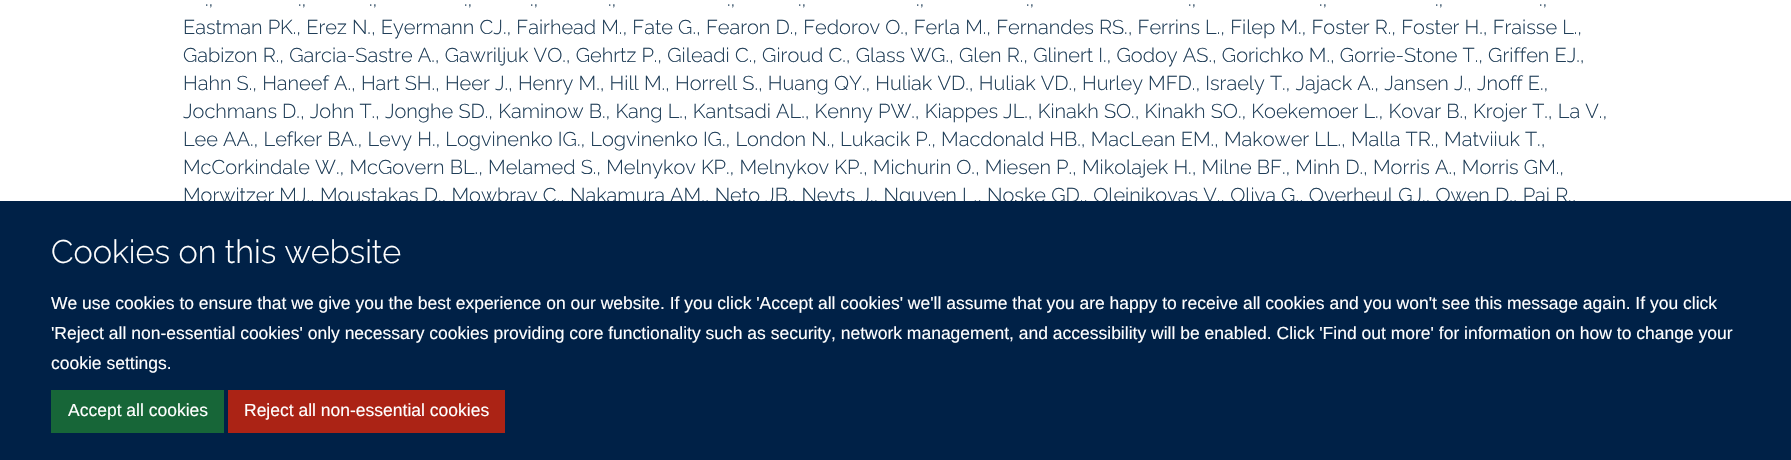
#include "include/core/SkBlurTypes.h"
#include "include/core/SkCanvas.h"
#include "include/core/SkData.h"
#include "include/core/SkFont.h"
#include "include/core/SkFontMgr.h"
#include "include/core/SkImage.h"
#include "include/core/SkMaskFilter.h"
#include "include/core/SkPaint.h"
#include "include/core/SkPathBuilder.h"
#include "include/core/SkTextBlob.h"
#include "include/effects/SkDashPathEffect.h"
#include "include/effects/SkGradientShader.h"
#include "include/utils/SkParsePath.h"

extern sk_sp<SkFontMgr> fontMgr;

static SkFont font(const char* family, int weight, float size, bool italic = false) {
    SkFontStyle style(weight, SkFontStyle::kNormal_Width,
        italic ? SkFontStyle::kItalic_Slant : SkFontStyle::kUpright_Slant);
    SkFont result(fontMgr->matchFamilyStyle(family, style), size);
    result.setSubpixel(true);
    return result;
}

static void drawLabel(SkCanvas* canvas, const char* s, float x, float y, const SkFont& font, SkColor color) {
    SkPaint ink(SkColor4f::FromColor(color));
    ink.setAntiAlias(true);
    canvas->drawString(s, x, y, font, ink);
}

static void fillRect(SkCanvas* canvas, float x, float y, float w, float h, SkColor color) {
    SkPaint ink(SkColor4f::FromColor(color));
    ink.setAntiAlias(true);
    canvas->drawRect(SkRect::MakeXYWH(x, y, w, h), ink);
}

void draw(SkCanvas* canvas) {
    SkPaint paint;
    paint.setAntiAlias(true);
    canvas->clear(0xFFFFFFFF);
    SkFont font1 = font("Raleway", 300, 20);
    drawLabel(canvas, ".,", 205, 6, font1, 0xFF203E58);
    drawLabel(canvas, ".,", 298, 6, font1, 0xFF203E58);
    drawLabel(canvas, ".,", 369, 6, font1, 0xFF203E58);
    drawLabel(canvas, ".,", 464, 6, font1, 0xFF203E58);
    drawLabel(canvas, ".,", 530, 6, font1, 0xFF203E58);
    drawLabel(canvas, ".,", 608, 6, font1, 0xFF203E58);
    drawLabel(canvas, ".,", 727, 6, font1, 0xFF203E58);
    drawLabel(canvas, ".,", 798, 6, font1, 0xFF203E58);
    drawLabel(canvas, ".,", 916, 6, font1, 0xFF203E58);
    drawLabel(canvas, ".,", 1026, 6, font1, 0xFF203E58);
    drawLabel(canvas, ".,", 1188, 6, font1, 0xFF203E58);
    drawLabel(canvas, ".,", 1319, 6, font1, 0xFF203E58);
    drawLabel(canvas, ".,", 1435, 6, font1, 0xFF203E58);
    drawLabel(canvas, ".,", 1539, 6, font1, 0xFF203E58);
    drawLabel(canvas, "Eastman PK., Erez N., Eyermann CJ., Fairhead M., Fate G., Fearon D., Fedorov O., Ferla M., Fernandes RS., Ferrins L., Filep M., Foster R., Foster H., Fraisse L.,", 183, 34, font1, 0xFF203E58);
    drawLabel(canvas, "Gabizon R., Garcia-Sastre A., Gawriljuk VO., Gehrtz P., Gileadi C., Giroud C., Glass WG., Glen R., Glinert I., Godoy AS., Gorichko M., Gorrie-Stone T., Griffen EJ.,", 183, 62, font1, 0xFF203E58);
    drawLabel(canvas, "Hahn S., Haneef A., Hart SH., Heer J., Henry M., Hill M., Horrell S., Huang QY., Huliak VD., Huliak VD., Hurley MFD., Israely T., Jajack A., Jansen J., Jnoff E.,", 183, 90, font1, 0xFF203E58);
    drawLabel(canvas, "Jochmans D., John T., Jonghe SD., Kaminow B., Kang L., Kantsadi AL., Kenny PW., Kiappes JL., Kinakh SO., Kinakh SO., Koekemoer L., Kovar B., Krojer T., La V.,", 183, 118, font1, 0xFF203E58);
    drawLabel(canvas, "Lee AA., Lefker BA., Levy H., Logvinenko IG., Logvinenko IG., London N., Lukacik P., Macdonald HB., MacLean EM., Makower LL., Malla TR., Matviiuk T.,", 183, 146, font1, 0xFF203E58);
    drawLabel(canvas, "McCorkindale W., McGovern BL., Melamed S., Melnykov KP., Melnykov KP., Michurin O., Miesen P., Mikolajek H., Milne BF., Minh D., Morris A., Morris GM.,", 183, 174, font1, 0xFF203E58);
    drawLabel(canvas, "Morwitzer MJ., Moustakas D., Mowbray C., Nakamura AM., Neto JB., Neyts J., Nguyen L., Noske GD., Oleinikovas V., Oliva G., Overheul GJ., Owen D., Pai R.,", 183, 202, font1, 0xFF203E58);
    fillRect(canvas, 0, 201, 1791, 259, 0xFF002147);
    SkFont font2 = font("Raleway", 300, 32.5f);
    drawLabel(canvas, "Cookies on this website", 51, 263, font2, 0xFFFFFFFF);
    SkFont font3 = font("Liberation Sans", 400, 17.5f);
    drawLabel(canvas, "We use cookies to ensure that we give you the best experience on our website. If you click 'Accept all cookies' we'll assume that you are happy to receive all cookies and you won't see this message again. If you click", 51, 309, font3, 0xFFFFFFFF);
    drawLabel(canvas, "'Reject all non-essential cookies' only necessary cookies providing core functionality such as security, network management, and accessibility will be enabled. Click 'Find out more' for information on how to change your", 51, 339, font3, 0xFFFFFFFF);
    drawLabel(canvas, "cookie settings.", 51, 369, font3, 0xFFFFFFFF);
    fillRect(canvas, 51, 390, 173, 43, 0xFF176638);
    drawLabel(canvas, "Accept all cookies", 68, 416, font3, 0xFFFFFFFF);
    fillRect(canvas, 228, 390, 277, 43, 0xFFAB2315);
    drawLabel(canvas, "Reject all non-essential cookies", 244, 416, font3, 0xFFFFFFFF);
}
